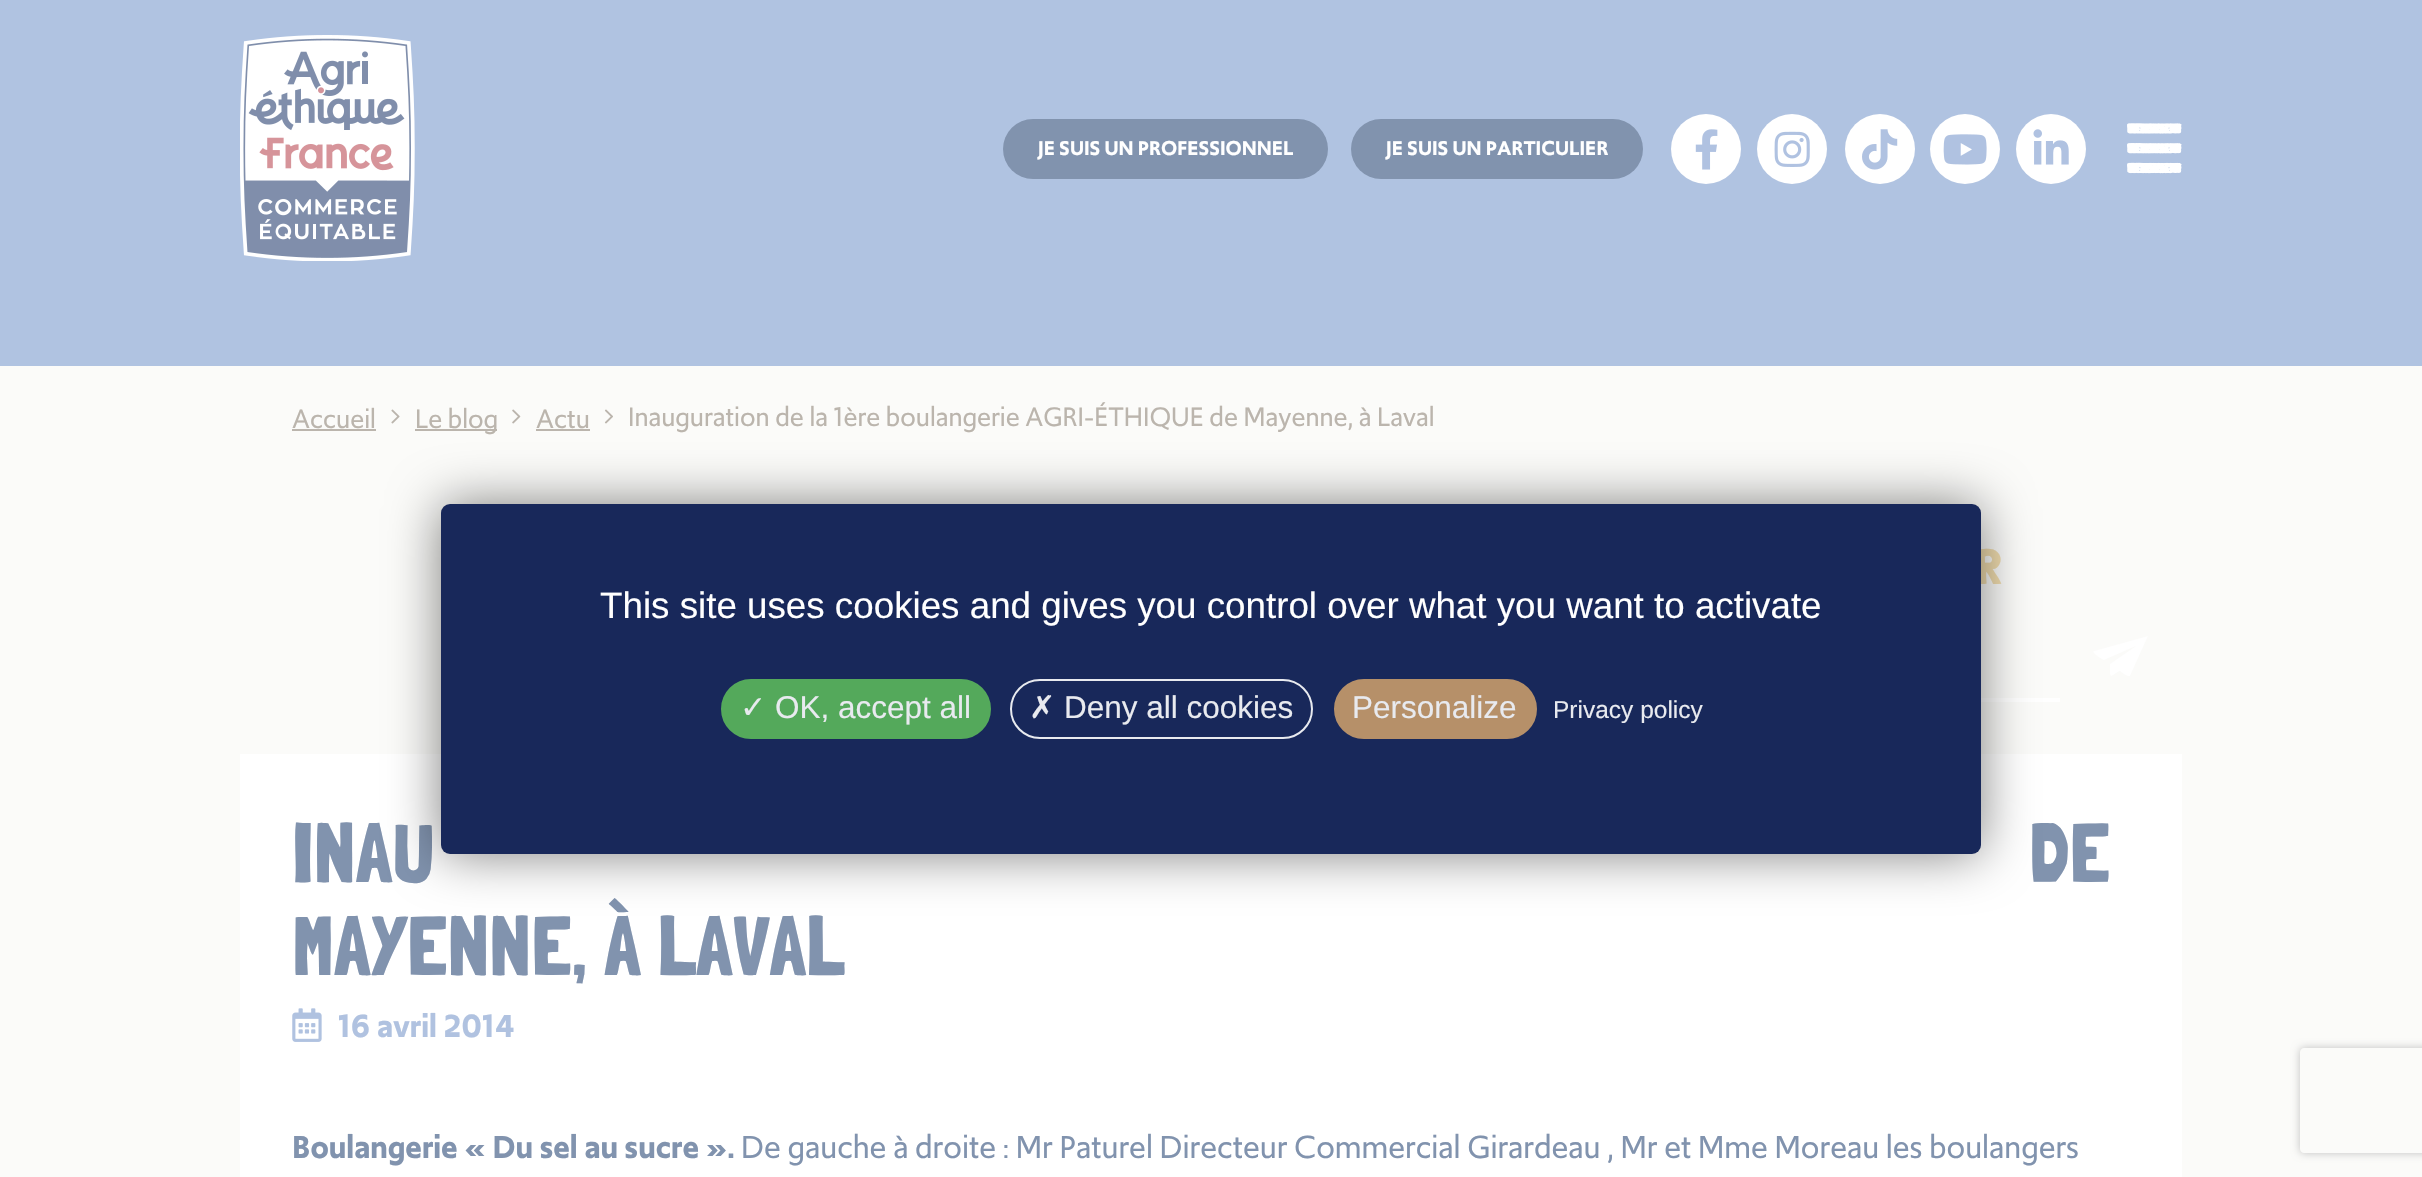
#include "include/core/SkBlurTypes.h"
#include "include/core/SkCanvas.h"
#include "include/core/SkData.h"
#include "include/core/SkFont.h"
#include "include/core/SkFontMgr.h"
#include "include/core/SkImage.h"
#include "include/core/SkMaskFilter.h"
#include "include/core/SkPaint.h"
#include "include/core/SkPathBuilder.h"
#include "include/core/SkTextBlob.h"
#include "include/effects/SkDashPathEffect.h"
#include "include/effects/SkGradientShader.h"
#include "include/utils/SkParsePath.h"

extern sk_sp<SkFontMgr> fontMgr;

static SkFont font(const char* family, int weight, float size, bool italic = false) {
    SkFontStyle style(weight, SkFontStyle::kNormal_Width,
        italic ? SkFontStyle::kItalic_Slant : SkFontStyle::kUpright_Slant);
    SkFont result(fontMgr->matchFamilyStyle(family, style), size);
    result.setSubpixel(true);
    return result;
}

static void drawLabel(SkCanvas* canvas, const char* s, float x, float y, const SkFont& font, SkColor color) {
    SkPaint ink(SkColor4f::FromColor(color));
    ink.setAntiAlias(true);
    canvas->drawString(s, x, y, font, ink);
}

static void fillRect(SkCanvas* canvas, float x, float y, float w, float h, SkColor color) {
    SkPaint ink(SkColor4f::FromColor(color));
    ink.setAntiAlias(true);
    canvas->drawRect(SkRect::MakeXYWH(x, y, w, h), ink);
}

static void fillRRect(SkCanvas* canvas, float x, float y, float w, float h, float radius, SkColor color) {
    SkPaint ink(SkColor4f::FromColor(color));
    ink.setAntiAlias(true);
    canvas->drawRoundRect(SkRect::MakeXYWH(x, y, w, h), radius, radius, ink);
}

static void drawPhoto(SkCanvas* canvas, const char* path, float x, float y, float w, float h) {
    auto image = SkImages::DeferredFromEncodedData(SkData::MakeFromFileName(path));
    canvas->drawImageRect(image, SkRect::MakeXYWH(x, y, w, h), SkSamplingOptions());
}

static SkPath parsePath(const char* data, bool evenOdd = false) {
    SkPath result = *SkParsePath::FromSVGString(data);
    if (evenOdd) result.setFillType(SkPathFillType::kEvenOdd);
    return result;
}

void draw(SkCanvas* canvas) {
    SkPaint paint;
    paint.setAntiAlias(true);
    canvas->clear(0xFFFBFBF9);
    fillRect(canvas, 0, 0, 2422, 366, 0xFFB0C3E1);
    drawPhoto(canvas, "assets/img1.png", 240, 35, 175, 226);
    fillRRect(canvas, 1003, 119, 325, 60, 30, 0xFF8193AE);
    SkFont font1 = font("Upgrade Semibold", 600, 21);
    drawLabel(canvas, "JE SUIS UN PROFESSIONNEL", 1038, 155, font1, 0xFFFFFFFF);
    fillRRect(canvas, 1351, 119, 292, 60, 30, 0xFF8193AE);
    drawLabel(canvas, "JE SUIS UN PARTICULIER", 1386, 155, font1, 0xFFFFFFFF);
    paint.setColor(0xFFFFFFFF);
    canvas->drawCircle(1706, 149, 35, paint);
    drawPhoto(canvas, "assets/img2.png", 1695, 129, 23, 41);
    canvas->drawCircle(1792, 149, 35, paint);
    drawPhoto(canvas, "assets/img3.png", 1774, 131, 36, 36);
    canvas->drawCircle(1880, 149, 35, paint);
    drawPhoto(canvas, "assets/img4.png", 1862, 129, 36, 41);
    canvas->drawCircle(1965, 149, 35, paint);
    drawPhoto(canvas, "assets/img5.png", 1943, 134, 44, 31);
    canvas->drawCircle(2051, 149, 35, paint);
    drawPhoto(canvas, "assets/img6.png", 2033, 129, 36, 36);
    drawPhoto(canvas, "assets/img7.png", 2127, 123, 55, 51);
    fillRect(canvas, 240, 754, 1942, 423, 0xFFFFFFFF);
    SkFont font2 = font("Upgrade", 400, 28);
    drawLabel(canvas, "Accueil", 292, 428, font2, 0xFFBBB5AD);
    fillRect(canvas, 292, 429, 84, 2, 0xFFBBB5AD);
    drawPhoto(canvas, "assets/img8.png", 391, 409, 9, 15);
    fillRect(canvas, 415, 429, 82, 2, 0xFFBBB5AD);
    drawLabel(canvas, "Le blog", 415, 428, font2, 0xFFBBB5AD);
    drawPhoto(canvas, "assets/img9.png", 512, 409, 9, 15);
    drawLabel(canvas, "Actu", 536, 428, font2, 0xFFBBB5AD);
    fillRect(canvas, 536, 429, 54, 2, 0xFFBBB5AD);
    drawPhoto(canvas, "assets/img10.png", 604, 409, 9, 15);
    drawLabel(canvas, "Inauguration de la 1ère boulangerie AGRI-ÉTHIQUE de Mayenne, à Laval", 628, 426, font2, 0xFFBBB5AD);
    SkFont font3 = font("Londrina Solid", 400, 84);
    drawLabel(canvas, "INAU", 292, 882, font3, 0xFF8193AE);
    drawLabel(canvas, "DE", 2029, 882, font3, 0xFF8193AE);
    drawLabel(canvas, "MAYENNE, À LAVAL", 292, 975, font3, 0xFF8193AE);
    drawPhoto(canvas, "assets/img11.png", 292, 1008, 30, 34);
    SkFont font4 = font("Upgrade Semibold", 600, 33.6f);
    drawLabel(canvas, "16 avril 2014", 338, 1037, font4, 0xFFB0C2E0);
    drawLabel(canvas, "Boulangerie « Du sel au sucre ».", 292, 1158, font4, 0xFF8193AE);
    SkFont font5 = font("Upgrade", 400, 33.6f);
    drawLabel(canvas, "De gauche à droite : Mr Paturel Directeur Commercial Girardeau , Mr et Mme Moreau les boulangers", 741, 1158, font5, 0xFF8193AE);
    SkFont font6 = font("Londrina Solid", 400, 49);
    drawLabel(canvas, "R", 1976, 584, font6, 0xFFF1DDAF);
    canvas->drawPath(parsePath("M2094 651C2090 652 2103 660 2104 660L2136 646L2110 664V674L2111 676C2112 676 2119 671 2120 671C2121 672 2128 677 2129 676H2130L2148 636Z"), paint);
    fillRect(canvas, 1981, 698, 79, 4, 0xFFFFFFFF);
    paint.setColor(0x80000000);
    paint.setMaskFilter(SkMaskFilter::MakeBlur(kNormal_SkBlurStyle, 26));
    canvas->drawRoundRect(SkRect::MakeXYWH(441, 504, 1540, 350), 9, 9, paint);
    paint.setMaskFilter(nullptr);
    fillRRect(canvas, 441, 504, 1540, 350, 9, 0xFF18285A);
    SkFont font7 = font("Liberation Sans", 400, 36.75f);
    drawLabel(canvas, "This site uses cookies and gives you control over what you want to activate", 600, 618, font7, 0xFFFFFFFF);
    paint.setColor(0xFF54A95B);
    canvas->drawRoundRect(SkRect::MakeXYWH(722, 680, 268, 58), 29, 29, paint);
    paint.setStroke(true);
    paint.setStrokeWidth(2);
    canvas->drawRoundRect(SkRect::MakeXYWH(722, 680, 268, 58), 29, 29, paint);
    SkFont font8 = font("DejaVu Sans", 400, 31.5f);
    drawLabel(canvas, "✓", 740, 718, font8, 0xFFE8EAEF);
    SkFont font9 = font("Liberation Sans", 400, 31.5f);
    drawLabel(canvas, "OK, accept all", 775, 718, font9, 0xFFE8EAEF);
    paint.setColor(0xFFE8EAEF);
    canvas->drawRoundRect(SkRect::MakeXYWH(1011, 680, 301, 58), 29, 29, paint);
    drawLabel(canvas, "✗", 1029, 718, font8, 0xFFE8EAEF);
    drawLabel(canvas, "Deny all cookies", 1064, 718, font9, 0xFFE8EAEF);
    paint.setStroke(false);
    paint.setColor(0xFFB69069);
    canvas->drawRoundRect(SkRect::MakeXYWH(1335, 680, 201, 58), 29, 29, paint);
    paint.setStroke(true);
    canvas->drawRoundRect(SkRect::MakeXYWH(1335, 680, 201, 58), 29, 29, paint);
    drawLabel(canvas, "Personalize", 1352, 718, font9, 0xFFE8EAEF);
    SkFont font10 = font("Liberation Sans", 400, 24.5f);
    drawLabel(canvas, "Privacy policy", 1553, 718, font10, 0xFFE8EAEF);
    canvas->save();
    canvas->clipPath(parsePath("M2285 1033H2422V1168H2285ZM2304 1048H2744C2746 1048 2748 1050 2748 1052V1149C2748 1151 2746 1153 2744 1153H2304C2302 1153 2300 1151 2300 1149V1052C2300 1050 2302 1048 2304 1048Z", true), true);
    paint.setStroke(false);
    paint.setColor(0xFFC0C0C0);
    paint.setMaskFilter(SkMaskFilter::MakeBlur(kNormal_SkBlurStyle, 4.5f));
    canvas->drawRoundRect(SkRect::MakeXYWH(2300, 1048, 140, 105), 4, 4, paint);
    paint.setMaskFilter(nullptr);
    canvas->restore();
}
